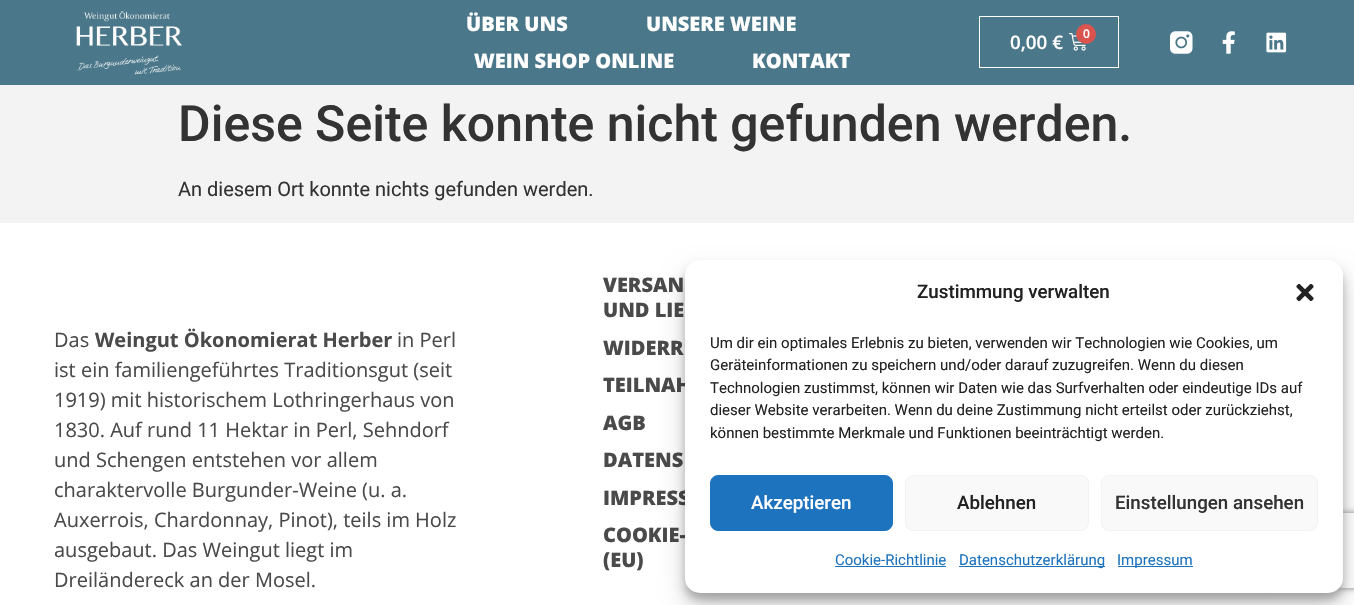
#include "include/core/SkBlurTypes.h"
#include "include/core/SkCanvas.h"
#include "include/core/SkData.h"
#include "include/core/SkFont.h"
#include "include/core/SkFontMgr.h"
#include "include/core/SkImage.h"
#include "include/core/SkMaskFilter.h"
#include "include/core/SkPaint.h"
#include "include/core/SkPathBuilder.h"
#include "include/core/SkTextBlob.h"
#include "include/effects/SkDashPathEffect.h"
#include "include/effects/SkGradientShader.h"
#include "include/utils/SkParsePath.h"

extern sk_sp<SkFontMgr> fontMgr;

static SkFont font(const char* family, int weight, float size, bool italic = false) {
    SkFontStyle style(weight, SkFontStyle::kNormal_Width,
        italic ? SkFontStyle::kItalic_Slant : SkFontStyle::kUpright_Slant);
    SkFont result(fontMgr->matchFamilyStyle(family, style), size);
    result.setSubpixel(true);
    return result;
}

static void drawLabel(SkCanvas* canvas, const char* s, float x, float y, const SkFont& font, SkColor color) {
    SkPaint ink(SkColor4f::FromColor(color));
    ink.setAntiAlias(true);
    canvas->drawString(s, x, y, font, ink);
}

static void fillRect(SkCanvas* canvas, float x, float y, float w, float h, SkColor color) {
    SkPaint ink(SkColor4f::FromColor(color));
    ink.setAntiAlias(true);
    canvas->drawRect(SkRect::MakeXYWH(x, y, w, h), ink);
}

static void fillRRect(SkCanvas* canvas, float x, float y, float w, float h, float radius, SkColor color) {
    SkPaint ink(SkColor4f::FromColor(color));
    ink.setAntiAlias(true);
    canvas->drawRoundRect(SkRect::MakeXYWH(x, y, w, h), radius, radius, ink);
}

static void drawPhoto(SkCanvas* canvas, const char* path, float x, float y, float w, float h) {
    auto image = SkImages::DeferredFromEncodedData(SkData::MakeFromFileName(path));
    canvas->drawImageRect(image, SkRect::MakeXYWH(x, y, w, h), SkSamplingOptions());
}

static SkPath parsePath(const char* data, bool evenOdd = false) {
    SkPath result = *SkParsePath::FromSVGString(data);
    if (evenOdd) result.setFillType(SkPathFillType::kEvenOdd);
    return result;
}

void draw(SkCanvas* canvas) {
    SkPaint paint;
    paint.setAntiAlias(true);
    canvas->clear(0xFFF3F3F3);
    fillRect(canvas, 0, 0, 1354, 85, 0xFF4A7789);
    drawPhoto(canvas, "assets/img1.png", 76, 11, 106, 64);
    SkFont font1 = font("Open Sans", 800, 20);
    drawLabel(canvas, "ÜBER UNS", 466, 31, font1, 0xFFFFFFFF);
    drawLabel(canvas, "UNSERE WEINE", 646, 31, font1, 0xFFFFFFFF);
    drawLabel(canvas, "WEIN SHOP ONLINE", 474, 68, font1, 0xFFFFFFFF);
    drawLabel(canvas, "KONTAKT", 752, 68, font1, 0xFFFFFFFF);
    paint.setStroke(true);
    paint.setStrokeWidth(1);
    paint.setColor(0xFFFFFFFF);
    canvas->drawRect(SkRect::MakeXYWH(979.5f, 16.5f, 139, 51), paint);
    drawPhoto(canvas, "assets/img2.png", 1069, 33, 17, 18);
    paint.setStroke(false);
    paint.setColor(0xFFD9534F);
    canvas->drawCircle(1086, 34, 10, paint);
    SkFont font2 = font("Open Sans", 600, 12);
    drawLabel(canvas, "0", 1083, 38, font2, 0xFFFFFFFF);
    SkFont font3 = font("Open Sans", 600, 18.75f);
    drawLabel(canvas, "0,00 €", 1010, 49, font3, 0xFFFFFFFF);
    drawPhoto(canvas, "assets/img3.png", 1170, 31, 23, 23);
    drawPhoto(canvas, "assets/img4.png", 1222, 31, 13, 23);
    drawPhoto(canvas, "assets/img5.png", 1266, 32, 21, 21);
    SkFont font4 = font("Roboto", 500, 50);
    drawLabel(canvas, "Diese Seite konnte nicht gefunden werden.", 178, 141, font4, 0xFF333333);
    SkFont font5 = font("Roboto", 400, 20);
    drawLabel(canvas, "An diesem Ort konnte nichts gefunden werden.", 178, 196, font5, 0xFF333333);
    fillRect(canvas, 0, 223, 1354, 382, 0xFFFFFFFF);
    SkFont font6 = font("Open Sans", 400, 20);
    drawLabel(canvas, "Das", 54, 347, font6, 0xFF4A4A4A);
    SkFont font7 = font("Open Sans", 700, 20);
    drawLabel(canvas, "Weingut Ökonomierat Herber", 95, 347, font7, 0xFF4A4A4A);
    drawLabel(canvas, "in Perl", 397, 347, font6, 0xFF4A4A4A);
    drawLabel(canvas, "ist ein familiengeführtes Traditionsgut (seit", 54, 377, font6, 0xFF4A4A4A);
    drawLabel(canvas, "1919) mit historischem Lothringerhaus von", 54, 407, font6, 0xFF4A4A4A);
    drawLabel(canvas, "1830. Auf rund 11 Hektar in Perl, Sehndorf", 54, 437, font6, 0xFF4A4A4A);
    drawLabel(canvas, "und Schengen entstehen vor allem", 54, 467, font6, 0xFF4A4A4A);
    drawLabel(canvas, "charaktervolle Burgunder-Weine (u. a.", 54, 497, font6, 0xFF4A4A4A);
    drawLabel(canvas, "Auxerrois, Chardonnay, Pinot), teils im Holz", 54, 527, font6, 0xFF4A4A4A);
    drawLabel(canvas, "ausgebaut. Das Weingut liegt im", 54, 557, font6, 0xFF4A4A4A);
    drawLabel(canvas, "Dreiländereck an der Mosel.", 54, 587, font6, 0xFF4A4A4A);
    drawLabel(canvas, "VERSAN", 603, 292, font1, 0xFF4A4A4A);
    drawLabel(canvas, "UND LIE", 603, 317, font1, 0xFF4A4A4A);
    drawLabel(canvas, "WIDERR", 603, 355, font1, 0xFF4A4A4A);
    drawLabel(canvas, "TEILNAH", 603, 392, font1, 0xFF4A4A4A);
    drawLabel(canvas, "AGB", 603, 430, font1, 0xFF4A4A4A);
    drawLabel(canvas, "DATENS", 603, 467, font1, 0xFF4A4A4A);
    drawLabel(canvas, "IMPRESS", 603, 505, font1, 0xFF4A4A4A);
    drawLabel(canvas, "COOKIE-", 603, 542, font1, 0xFF4A4A4A);
    drawLabel(canvas, "(EU)", 603, 567, font1, 0xFF4A4A4A);
    paint.setColor(0x3B000000);
    paint.setMaskFilter(SkMaskFilter::MakeBlur(kNormal_SkBlurStyle, 4));
    canvas->drawRoundRect(SkRect::MakeXYWH(685, 268, 658, 332), 15, 15, paint);
    paint.setMaskFilter(nullptr);
    paint.setColor(0x30000000);
    paint.setMaskFilter(SkMaskFilter::MakeBlur(kNormal_SkBlurStyle, 12.5f));
    canvas->drawRoundRect(SkRect::MakeXYWH(685, 273, 658, 332), 15, 15, paint);
    paint.setMaskFilter(nullptr);
    canvas->save();
    canvas->clipPath(parsePath("M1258 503H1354V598H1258ZM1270.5 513H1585.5C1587 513 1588 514 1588 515.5V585.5C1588 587 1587 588 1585.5 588H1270.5C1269 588 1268 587 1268 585.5V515.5C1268 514 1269 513 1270.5 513Z", true), true);
    paint.setColor(0xFF808080);
    paint.setMaskFilter(SkMaskFilter::MakeBlur(kNormal_SkBlurStyle, 3));
    canvas->drawRoundRect(SkRect::MakeXYWH(1268, 513, 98, 75), 2.5f, 2.5f, paint);
    paint.setMaskFilter(nullptr);
    canvas->restore();
    fillRRect(canvas, 685, 260, 658, 333, 15, 0xFFFFFFFF);
    SkFont font8 = font("Roboto", 500, 18.75f);
    drawLabel(canvas, "Zustimmung verwalten", 917, 298, font8, 0xFF222222);
    drawPhoto(canvas, "assets/img6.png", 1296, 283, 18, 18);
    SkFont font9 = font("Roboto", 400, 15);
    drawLabel(canvas, "Um dir ein optimales Erlebnis zu bieten, verwenden wir Technologien wie Cookies, um", 710, 348, font9, 0xFF222222);
    drawLabel(canvas, "Geräteinformationen zu speichern und/oder darauf zuzugreifen. Wenn du diesen", 710, 370, font9, 0xFF222222);
    drawLabel(canvas, "Technologien zustimmst, können wir Daten wie das Surfverhalten oder eindeutige IDs auf", 710, 393, font9, 0xFF222222);
    drawLabel(canvas, "dieser Website verarbeiten. Wenn du deine Zustimmung nicht erteilst oder zurückziehst,", 710, 415, font9, 0xFF222222);
    drawLabel(canvas, "können bestimmte Merkmale und Funktionen beeinträchtigt werden.", 710, 438, font9, 0xFF222222);
    paint.setColor(0xFF1E73BE);
    canvas->drawRoundRect(SkRect::MakeXYWH(710.5f, 475.5f, 182, 55), 7.5f, 7.5f, paint);
    paint.setStroke(true);
    canvas->drawRoundRect(SkRect::MakeXYWH(710.5f, 475.5f, 182, 55), 7.5f, 7.5f, paint);
    drawLabel(canvas, "Akzeptieren", 751, 509, font8, 0xFFFFFFFF);
    paint.setStroke(false);
    paint.setColor(0xFFF9F9F9);
    canvas->drawRoundRect(SkRect::MakeXYWH(905.5f, 475.5f, 183, 55), 7.5f, 7.5f, paint);
    paint.setStroke(true);
    paint.setColor(0xFFF2F2F2);
    canvas->drawRoundRect(SkRect::MakeXYWH(905.5f, 475.5f, 183, 55), 7.5f, 7.5f, paint);
    drawLabel(canvas, "Ablehnen", 957, 509, font8, 0xFF222222);
    paint.setStroke(false);
    paint.setColor(0xFFF9F9F9);
    canvas->drawRoundRect(SkRect::MakeXYWH(1101.5f, 475.5f, 216, 55), 7.5f, 7.5f, paint);
    paint.setStroke(true);
    paint.setColor(0xFFF2F2F2);
    canvas->drawRoundRect(SkRect::MakeXYWH(1101.5f, 475.5f, 216, 55), 7.5f, 7.5f, paint);
    drawLabel(canvas, "Einstellungen ansehen", 1115, 509, font8, 0xFF333333);
    drawLabel(canvas, "Cookie-Richtlinie", 835, 565, font9, 0xFF1E73BE);
    fillRect(canvas, 835, 566, 111, 1, 0xFF1E73BE);
    fillRect(canvas, 959, 566, 146, 1, 0xFF1E73BE);
    drawLabel(canvas, "Datenschutzerklärung", 959, 565, font9, 0xFF1E73BE);
    fillRect(canvas, 1118, 566, 75, 1, 0xFF1E73BE);
    drawLabel(canvas, "Impressum", 1117, 565, font9, 0xFF1E73BE);
}
